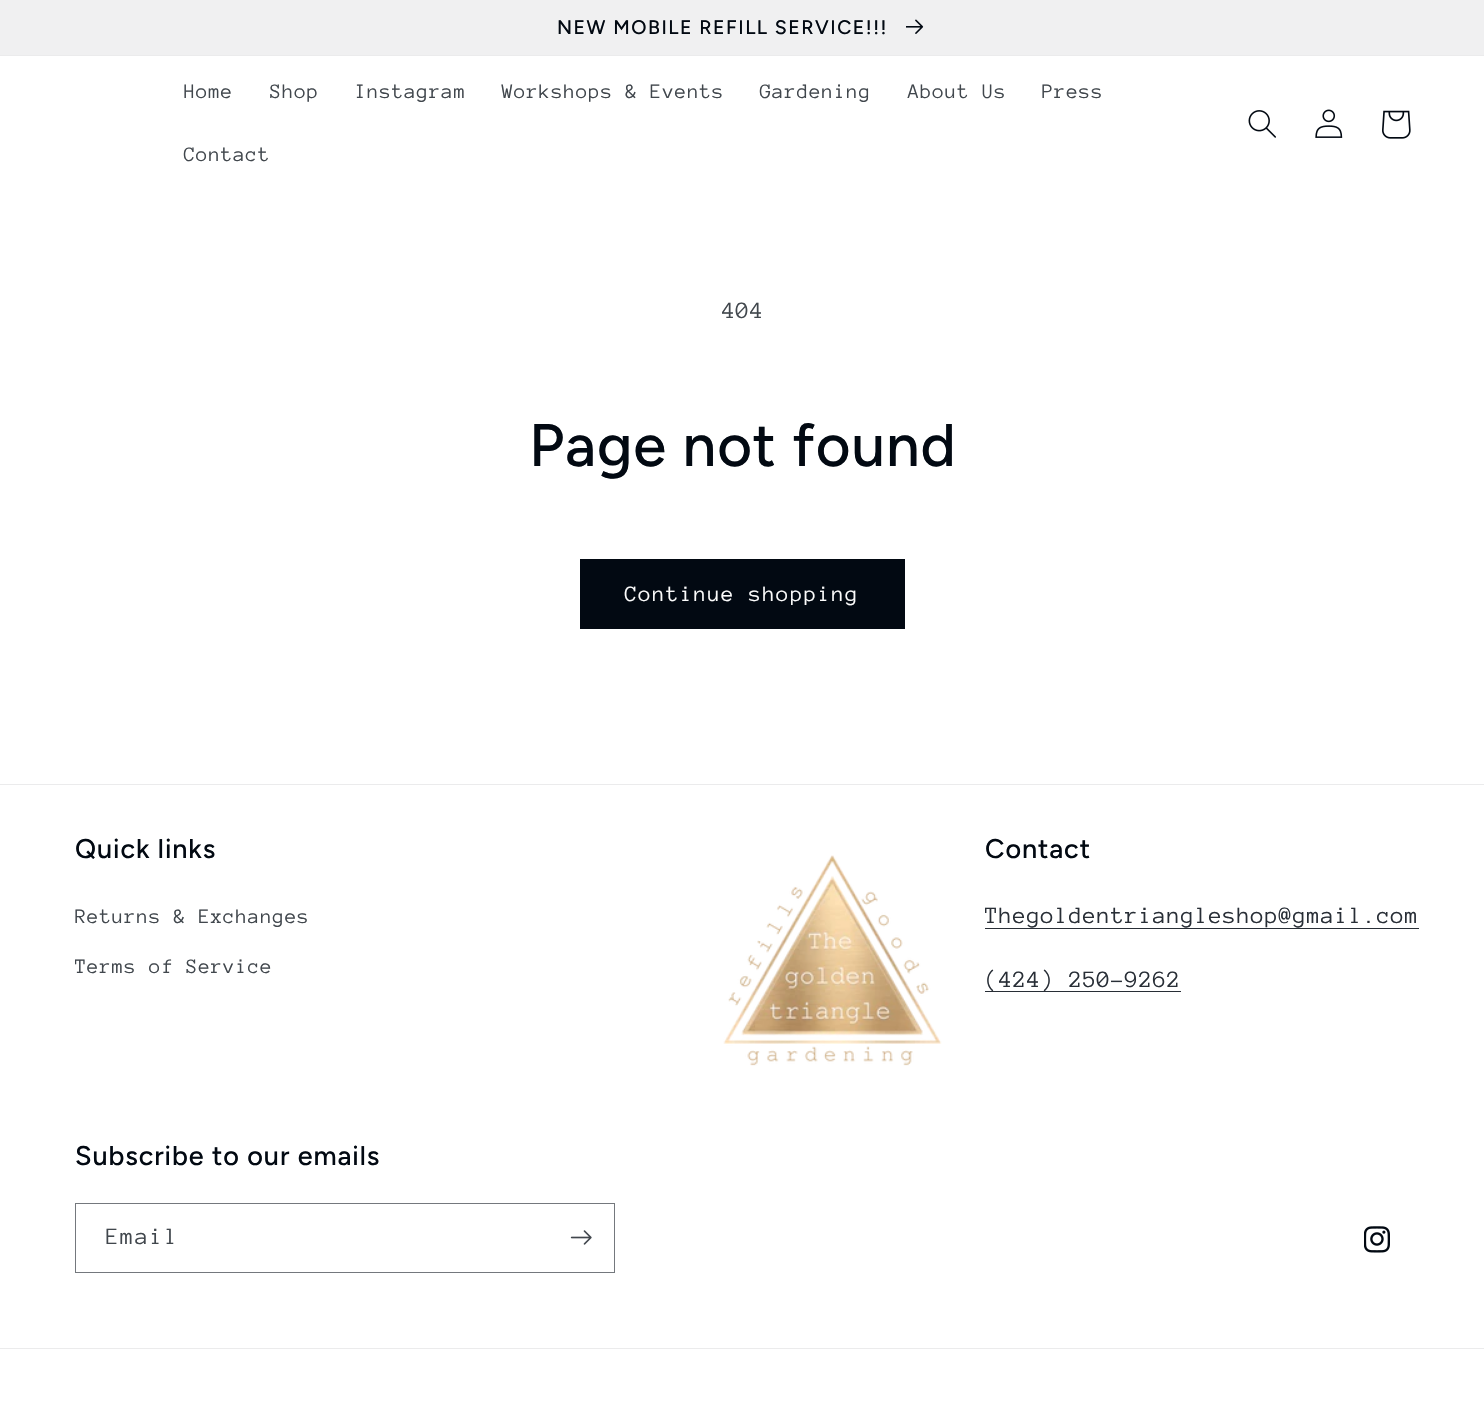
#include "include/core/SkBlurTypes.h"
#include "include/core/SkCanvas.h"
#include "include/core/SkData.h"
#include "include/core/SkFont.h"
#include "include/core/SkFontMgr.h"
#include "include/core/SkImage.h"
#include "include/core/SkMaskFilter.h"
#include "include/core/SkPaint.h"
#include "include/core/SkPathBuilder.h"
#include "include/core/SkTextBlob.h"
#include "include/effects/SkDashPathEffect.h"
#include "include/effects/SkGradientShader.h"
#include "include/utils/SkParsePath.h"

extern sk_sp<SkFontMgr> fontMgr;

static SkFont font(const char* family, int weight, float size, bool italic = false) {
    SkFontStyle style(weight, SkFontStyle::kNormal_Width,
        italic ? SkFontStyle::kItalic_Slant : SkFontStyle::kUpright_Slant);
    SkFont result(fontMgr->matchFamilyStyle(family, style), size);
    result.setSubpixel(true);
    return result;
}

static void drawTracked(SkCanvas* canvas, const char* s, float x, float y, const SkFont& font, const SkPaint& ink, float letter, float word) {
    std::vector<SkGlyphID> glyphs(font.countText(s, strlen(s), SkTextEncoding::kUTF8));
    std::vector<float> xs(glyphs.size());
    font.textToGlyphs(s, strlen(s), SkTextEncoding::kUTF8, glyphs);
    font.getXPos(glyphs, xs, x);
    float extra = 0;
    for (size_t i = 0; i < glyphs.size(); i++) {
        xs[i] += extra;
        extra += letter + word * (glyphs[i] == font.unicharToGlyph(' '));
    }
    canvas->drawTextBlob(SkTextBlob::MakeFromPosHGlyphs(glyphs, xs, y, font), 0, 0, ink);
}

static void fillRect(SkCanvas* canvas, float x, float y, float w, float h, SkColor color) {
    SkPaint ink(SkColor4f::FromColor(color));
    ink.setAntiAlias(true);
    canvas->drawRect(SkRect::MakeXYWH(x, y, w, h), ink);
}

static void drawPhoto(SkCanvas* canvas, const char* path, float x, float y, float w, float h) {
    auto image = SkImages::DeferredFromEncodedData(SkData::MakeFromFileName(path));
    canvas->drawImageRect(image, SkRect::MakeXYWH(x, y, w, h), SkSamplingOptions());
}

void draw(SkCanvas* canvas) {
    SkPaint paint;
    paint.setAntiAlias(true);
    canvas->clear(0xFFFFFFFF);
    fillRect(canvas, 0, 55, 1484, 1, 0xFFEBEBEC);
    fillRect(canvas, 0, 0, 1484, 55, 0xFFF0F0F1);
    SkFont font1 = font("Figtree", 500, 19.5f);
    paint.setColor(0xFF020912);
    drawTracked(canvas, "NEW MOBILE REFILL SERVICE!!!", 557, 34, font1, paint, 1.5f, 0);
    drawPhoto(canvas, "assets/img1.png", 906, 19, 18, 15);
    SkFont font2 = font("Anonymous Pro", 400, 21);
    paint.setColor(0xFF41474D);
    drawTracked(canvas, "Home", 184, 98, font2, paint, 0.9f, 0);
    drawTracked(canvas, "Shop", 270, 98, font2, paint, 0.9f, 0);
    drawTracked(canvas, "Instagram", 355, 98, font2, paint, 0.9f, 0);
    drawTracked(canvas, "Workshops & Events", 502, 98, font2, paint, 0.9f, 0);
    drawTracked(canvas, "Gardening", 760, 98, font2, paint, 0.9f, 0);
    drawTracked(canvas, "About Us", 908, 98, font2, paint, 0.9f, 0);
    drawTracked(canvas, "Press", 1042, 98, font2, paint, 0.9f, 0);
    drawTracked(canvas, "Contact", 184, 161, font2, paint, 0.9f, 0);
    drawPhoto(canvas, "assets/img2.png", 1248, 110, 28, 28);
    drawPhoto(canvas, "assets/img3.png", 1315, 109, 28, 29);
    drawPhoto(canvas, "assets/img4.png", 1382, 110, 29, 29);
    SkFont font3 = font("Anonymous Pro", 400, 24);
    drawTracked(canvas, "404", 722, 318, font3, paint, 0.9f, 0);
    SkFont font4 = font("Figtree", 500, 60);
    paint.setColor(0xFF020912);
    drawTracked(canvas, "Page not found", 529, 466, font4, paint, 0.9f, 0);
    fillRect(canvas, 580, 559, 325, 70, 0xFF020912);
    SkFont font5 = font("Anonymous Pro", 400, 22.5f);
    paint.setColor(0xFFFCFCFC);
    drawTracked(canvas, "Continue shopping", 625, 601, font5, paint, 1.5f, 0);
    fillRect(canvas, 0, 784, 1484, 1, 0xFFEBEBEC);
    SkFont font6 = font("Figtree", 500, 27);
    paint.setColor(0xFF020912);
    drawTracked(canvas, "Quick links", 75, 858, font6, paint, 0.9f, 0);
    paint.setColor(0xFF41474D);
    drawTracked(canvas, "Returns & Exchanges", 75, 923, font2, paint, 0.9f, 0);
    drawTracked(canvas, "Terms of Service", 75, 973, font2, paint, 0.9f, 0);
    drawPhoto(canvas, "assets/img5.png", 723, 855, 219, 211);
    paint.setColor(0xFF020912);
    drawTracked(canvas, "Contact", 985, 858, font6, paint, 0.9f, 0);
    paint.setColor(0xFF282E36);
    drawTracked(canvas, "Thegoldentriangleshop@gmail.com", 985, 923, font3, paint, 0.9f, 0);
    fillRect(canvas, 985, 928, 434, 1, 0xFF282E36);
    fillRect(canvas, 985, 991, 196, 1, 0xFF282E36);
    drawTracked(canvas, "(424) 250-9262", 985, 987, font3, paint, 0.9f, 0);
    paint.setColor(0xFF020912);
    drawTracked(canvas, "Subscribe to our emails", 75, 1165, font6, paint, 0.9f, 0);
    paint.setStroke(true);
    paint.setStrokeWidth(1);
    paint.setColor(0xFF74787D);
    canvas->drawRect(SkRect::MakeXYWH(75.5f, 1203.5f, 539, 69), paint);
    paint.setStroke(false);
    paint.setColor(0xFF41474D);
    drawTracked(canvas, "Email", 106, 1244, font3, paint, 1.5f, 0);
    drawPhoto(canvas, "assets/img6.png", 570, 1230, 22, 15);
    drawPhoto(canvas, "assets/img7.png", 1364, 1226, 26, 27);
    fillRect(canvas, 0, 1348, 1484, 1, 0xFFEBEBEC);
}
